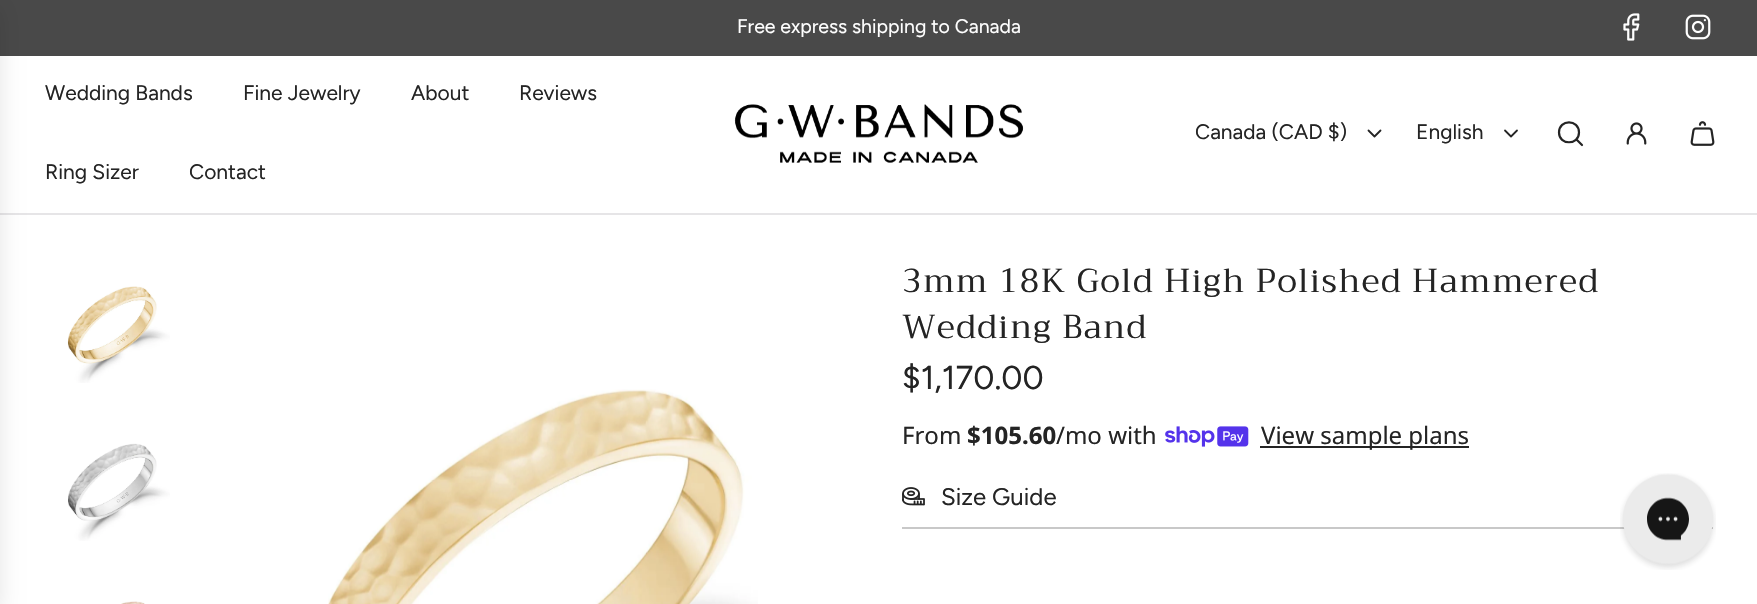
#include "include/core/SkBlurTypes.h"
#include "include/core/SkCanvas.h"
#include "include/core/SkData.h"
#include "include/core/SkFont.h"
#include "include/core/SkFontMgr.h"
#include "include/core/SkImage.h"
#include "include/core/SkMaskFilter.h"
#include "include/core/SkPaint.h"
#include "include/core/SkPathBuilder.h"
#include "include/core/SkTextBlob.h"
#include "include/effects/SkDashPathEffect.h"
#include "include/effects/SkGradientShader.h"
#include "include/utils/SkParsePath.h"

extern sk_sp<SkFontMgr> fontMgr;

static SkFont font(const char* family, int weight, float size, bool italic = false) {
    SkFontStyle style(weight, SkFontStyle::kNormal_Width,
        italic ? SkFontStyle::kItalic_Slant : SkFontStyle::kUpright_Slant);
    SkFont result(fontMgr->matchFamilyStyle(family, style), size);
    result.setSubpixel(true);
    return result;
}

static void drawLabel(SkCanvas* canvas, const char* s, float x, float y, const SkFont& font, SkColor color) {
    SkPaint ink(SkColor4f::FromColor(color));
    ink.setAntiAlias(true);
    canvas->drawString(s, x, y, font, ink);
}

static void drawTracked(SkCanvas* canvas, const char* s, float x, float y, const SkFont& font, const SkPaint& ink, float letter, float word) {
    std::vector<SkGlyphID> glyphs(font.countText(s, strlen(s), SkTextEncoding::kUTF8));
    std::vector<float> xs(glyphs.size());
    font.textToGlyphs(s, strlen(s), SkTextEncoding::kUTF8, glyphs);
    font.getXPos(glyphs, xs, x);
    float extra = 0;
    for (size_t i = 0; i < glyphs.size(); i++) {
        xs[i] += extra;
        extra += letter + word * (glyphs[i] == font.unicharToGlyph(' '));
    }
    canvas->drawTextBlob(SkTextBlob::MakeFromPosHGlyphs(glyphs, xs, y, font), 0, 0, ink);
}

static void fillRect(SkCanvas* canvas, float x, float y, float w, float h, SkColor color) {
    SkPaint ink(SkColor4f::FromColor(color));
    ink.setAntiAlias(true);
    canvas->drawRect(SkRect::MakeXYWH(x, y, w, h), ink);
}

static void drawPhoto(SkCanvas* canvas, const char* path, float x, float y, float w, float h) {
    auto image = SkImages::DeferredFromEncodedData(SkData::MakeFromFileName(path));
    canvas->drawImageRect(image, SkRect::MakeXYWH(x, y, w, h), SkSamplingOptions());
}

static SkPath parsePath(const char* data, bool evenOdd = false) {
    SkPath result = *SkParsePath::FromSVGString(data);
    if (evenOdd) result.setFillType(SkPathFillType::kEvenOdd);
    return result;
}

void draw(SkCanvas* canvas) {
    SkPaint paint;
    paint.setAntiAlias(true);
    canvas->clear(0xFFFFFFFF);
    fillRect(canvas, 0, 0, 1757, 56, 0xFF494949);
    SkFont font1 = font("Figtree", 400, 19.5f);
    drawLabel(canvas, "Free express shipping to Canada", 737, 33, font1, 0xFFFFFFFF);
    drawPhoto(canvas, "assets/img1.png", 1623, 13, 17, 28);
    drawPhoto(canvas, "assets/img2.png", 1685, 14, 26, 26);
    fillRect(canvas, 0, 213, 1757, 2, 0xFFE6E5E7);
    paint.setColor(0x1A000000);
    paint.setMaskFilter(SkMaskFilter::MakeBlur(kNormal_SkBlurStyle, 11));
    canvas->drawRect(SkRect::MakeXYWH(-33, 8, 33, 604), paint);
    paint.setMaskFilter(nullptr);
    SkFont font2 = font("Figtree", 400, 21);
    drawLabel(canvas, "Wedding Bands", 45, 100, font2, 0xFF242424);
    drawLabel(canvas, "Fine Jewelry", 243, 100, font2, 0xFF242424);
    drawLabel(canvas, "About", 411, 100, font2, 0xFF242424);
    drawLabel(canvas, "Reviews", 519, 100, font2, 0xFF242424);
    drawLabel(canvas, "Ring Sizer", 45, 179, font2, 0xFF242424);
    drawLabel(canvas, "Contact", 189, 179, font2, 0xFF242424);
    drawPhoto(canvas, "assets/img3.png", 734, 104, 290, 59);
    drawLabel(canvas, "Canada (CAD $)", 1195, 139, font2, 0xFF242424);
    paint.setStroke(true);
    paint.setStrokeWidth(1.8f);
    paint.setStrokeCap(SkPaint::kRound_Cap);
    paint.setStrokeJoin(SkPaint::kRound_Join);
    paint.setColor(0xFF242424);
    canvas->drawPath(parsePath("M1368.5 130.5L1374.5 136.5L1380.5 130.5"), paint);
    drawLabel(canvas, "English", 1416, 139, font2, 0xFF242424);
    canvas->drawPath(parsePath("M1505 130.5L1511 136.5L1517 130.5"), paint);
    paint.setStrokeWidth(2.2f);
    canvas->drawPath(parsePath("M1577 140L1582 145M1559 132.5C1559 145.5 1579 145.5 1579 132.5C1579 119 1559 119 1559 132.5Z"), paint);
    drawPhoto(canvas, "assets/img4.png", 1626, 122, 21, 23);
    drawPhoto(canvas, "assets/img5.png", 1690, 121, 25, 25);
    drawPhoto(canvas, "assets/img6.png", 67, 286, 103, 97);
    drawPhoto(canvas, "assets/img7.png", 68, 443, 102, 98);
    drawPhoto(canvas, "assets/img8.png", 121, 601, 24, 3);
    drawPhoto(canvas, "assets/img9.png", 328, 389, 430, 215);
    SkFont font3 = font("Trirong", 400, 33.1f);
    paint.setStroke(false);
    drawTracked(canvas, "3mm 18K Gold High Polished Hammered", 902, 292, font3, paint, 1.5f, 0);
    drawTracked(canvas, "Wedding Band", 902, 338, font3, paint, 1.5f, 0);
    SkFont font4 = font("Figtree", 400, 33.1f);
    drawLabel(canvas, "$1,170.00", 902, 389, font4, 0xFF242424);
    SkFont font5 = font("Noto Sans", 400, 24);
    drawLabel(canvas, "From", 902, 444, font5, 0xFF242424);
    SkFont font6 = font("Noto Sans", 700, 24);
    drawLabel(canvas, "$105.60", 967, 444, font6, 0xFF242424);
    drawLabel(canvas, "/mo with", 1056, 444, font5, 0xFF242424);
    drawPhoto(canvas, "assets/img10.png", 1165, 426, 84, 21);
    fillRect(canvas, 1260, 446, 209, 2, 0xFF242424);
    drawLabel(canvas, "View sample plans", 1261, 444, font5, 0xFF242424);
    drawPhoto(canvas, "assets/img11.png", 902, 487, 23, 19);
    SkFont font7 = font("Figtree", 400, 24);
    drawLabel(canvas, "Size Guide", 941, 505, font7, 0xFF242424);
    fillRect(canvas, 902, 527, 811, 2, 0xFFC8C8C8);
    drawPhoto(canvas, "assets/img12.png", 1620, 473, 96, 97);
}
